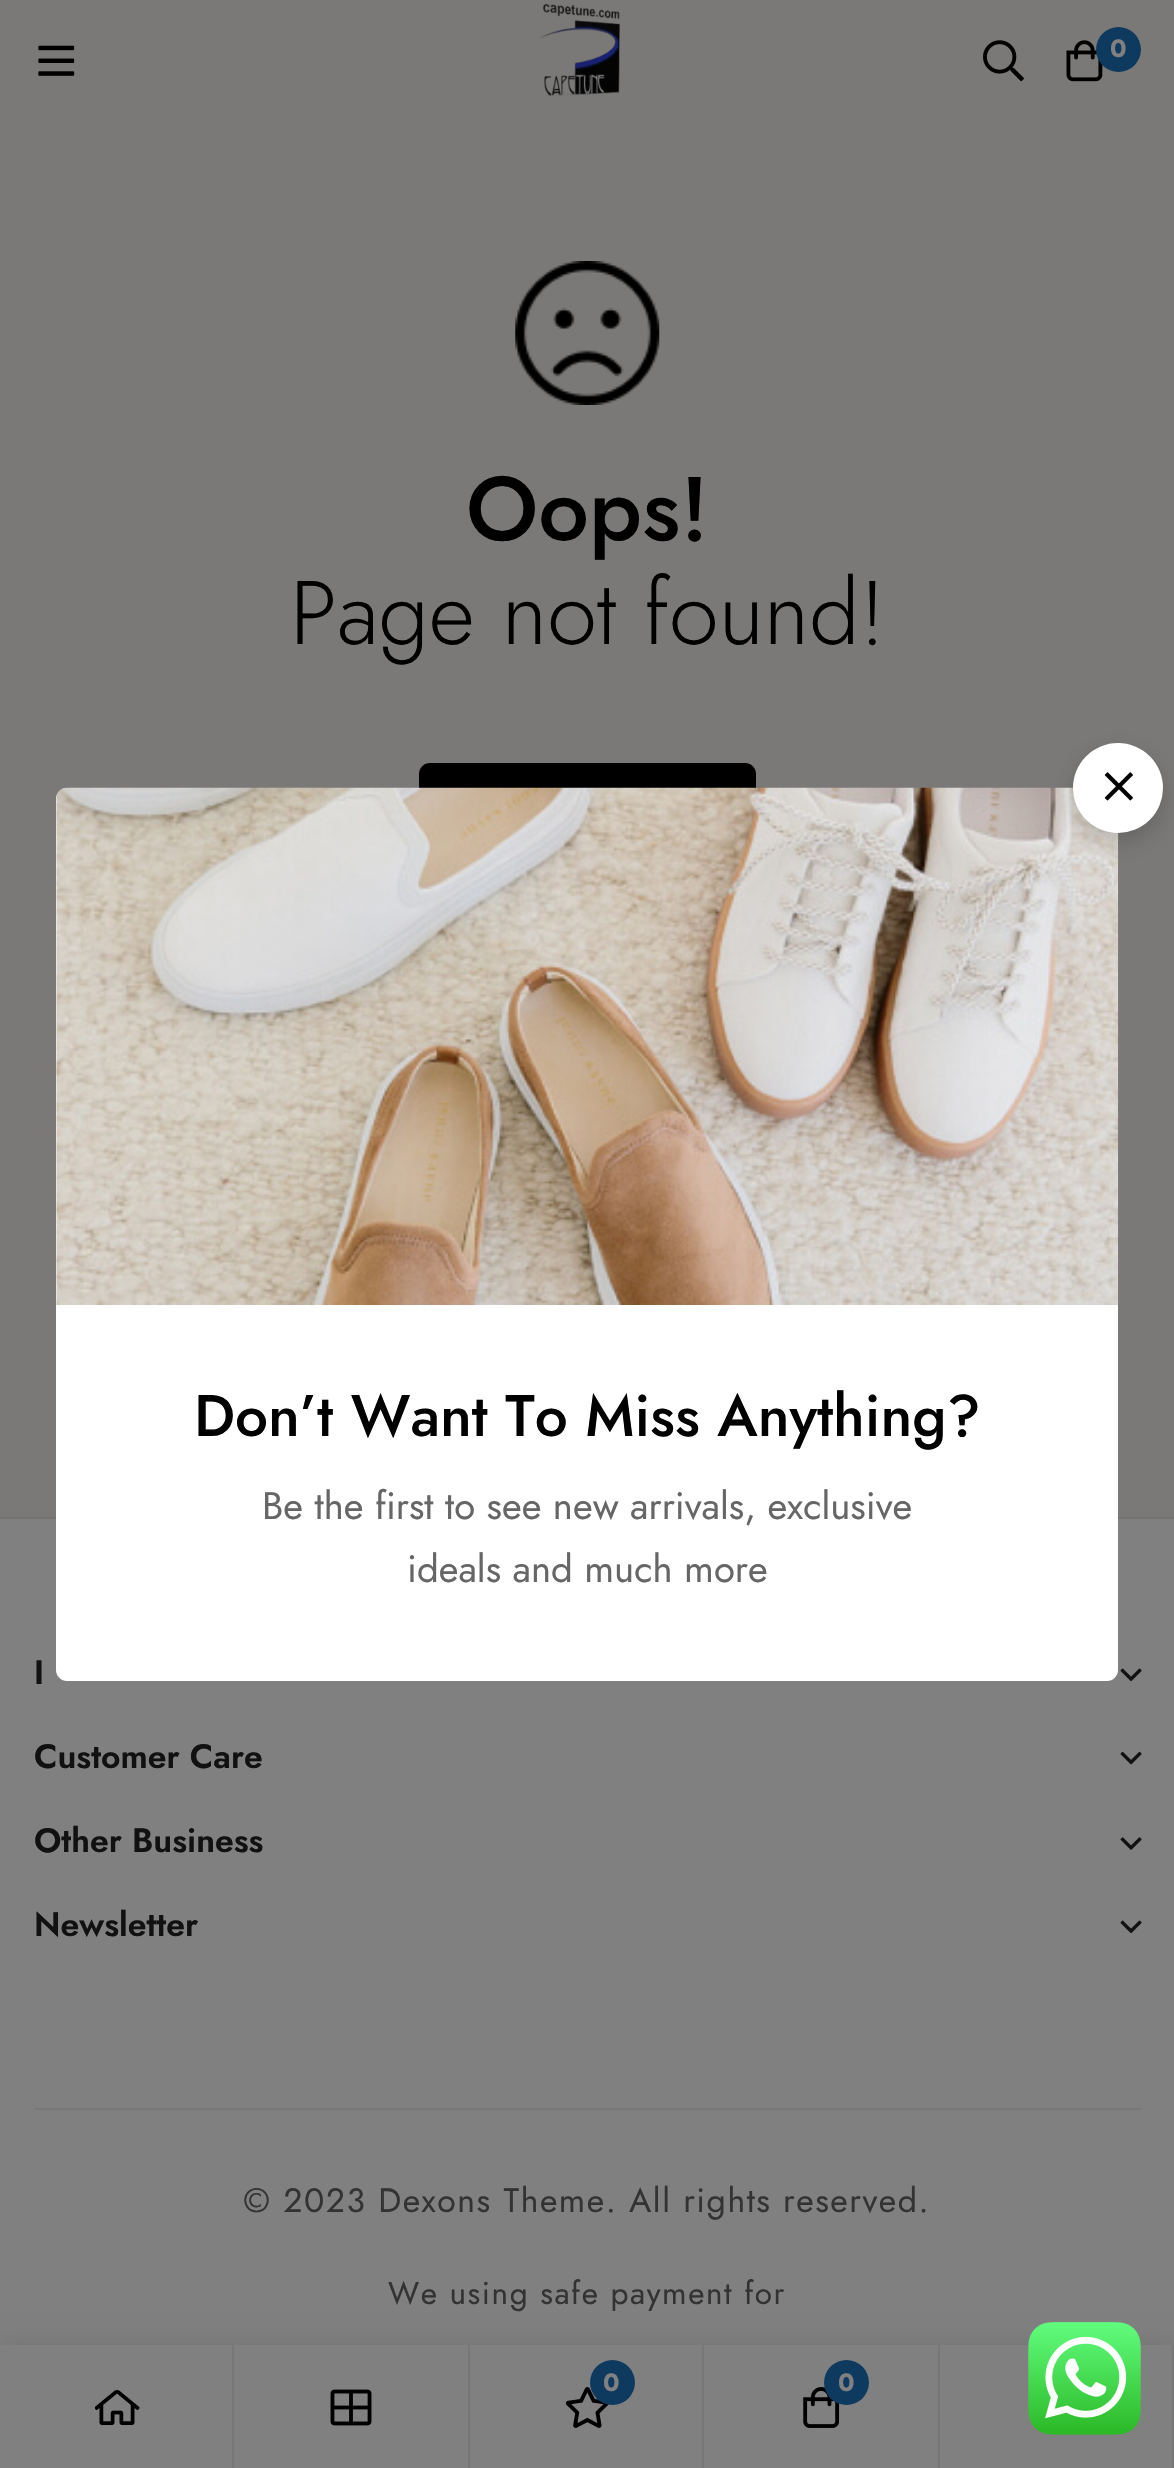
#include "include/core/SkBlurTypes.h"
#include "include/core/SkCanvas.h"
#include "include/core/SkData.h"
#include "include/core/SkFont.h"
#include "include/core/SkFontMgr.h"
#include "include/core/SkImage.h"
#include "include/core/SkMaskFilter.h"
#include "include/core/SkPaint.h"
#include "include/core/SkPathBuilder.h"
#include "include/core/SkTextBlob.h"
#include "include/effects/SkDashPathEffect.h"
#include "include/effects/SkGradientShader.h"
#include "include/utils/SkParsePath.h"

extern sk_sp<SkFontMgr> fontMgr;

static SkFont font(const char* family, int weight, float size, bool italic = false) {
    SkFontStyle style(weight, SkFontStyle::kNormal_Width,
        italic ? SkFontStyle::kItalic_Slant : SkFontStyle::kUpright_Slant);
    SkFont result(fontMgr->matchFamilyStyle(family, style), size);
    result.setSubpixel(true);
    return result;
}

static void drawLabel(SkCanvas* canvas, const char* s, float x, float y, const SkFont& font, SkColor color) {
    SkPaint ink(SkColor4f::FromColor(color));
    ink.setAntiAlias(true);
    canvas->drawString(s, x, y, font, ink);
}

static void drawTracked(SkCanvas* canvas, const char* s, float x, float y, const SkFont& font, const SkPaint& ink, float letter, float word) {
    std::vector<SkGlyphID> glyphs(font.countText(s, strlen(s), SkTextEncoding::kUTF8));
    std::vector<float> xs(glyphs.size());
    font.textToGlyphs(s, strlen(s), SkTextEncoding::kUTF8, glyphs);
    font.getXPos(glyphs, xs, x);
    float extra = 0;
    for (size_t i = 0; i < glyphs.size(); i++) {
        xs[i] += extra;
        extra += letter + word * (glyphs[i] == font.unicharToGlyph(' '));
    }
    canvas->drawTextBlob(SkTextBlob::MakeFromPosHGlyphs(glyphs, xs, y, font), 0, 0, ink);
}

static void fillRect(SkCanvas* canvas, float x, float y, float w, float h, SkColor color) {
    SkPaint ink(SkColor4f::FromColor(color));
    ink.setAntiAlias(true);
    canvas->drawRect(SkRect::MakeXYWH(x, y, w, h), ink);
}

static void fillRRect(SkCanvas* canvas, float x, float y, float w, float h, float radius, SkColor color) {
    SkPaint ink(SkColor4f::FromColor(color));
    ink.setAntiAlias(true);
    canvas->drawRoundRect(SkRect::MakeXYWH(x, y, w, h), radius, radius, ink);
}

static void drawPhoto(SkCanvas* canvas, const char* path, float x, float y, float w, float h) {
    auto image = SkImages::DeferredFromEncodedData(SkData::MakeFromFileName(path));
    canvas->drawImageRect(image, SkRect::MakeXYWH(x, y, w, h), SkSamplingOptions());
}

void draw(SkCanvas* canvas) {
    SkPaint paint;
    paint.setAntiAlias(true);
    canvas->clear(0xFF7B7977);
    drawPhoto(canvas, "assets/img1.png", 38, 45, 37, 31);
    drawPhoto(canvas, "assets/img2.png", 536, 3, 85, 94);
    drawPhoto(canvas, "assets/img3.png", 983, 40, 41, 42);
    drawPhoto(canvas, "assets/img4.png", 1066, 40, 37, 42);
    paint.setColor(0xFF0F3A5F);
    canvas->drawCircle(1118.5f, 49.5f, 22.5f, paint);
    SkFont font1 = font("Jost", 700, 25);
    drawLabel(canvas, "0", 1110, 57, font1, 0xFF808080);
    drawPhoto(canvas, "assets/img5.png", 515, 261, 145, 144);
    SkFont font2 = font("Jost", 500, 90);
    drawLabel(canvas, "Oops!", 466, 540, font2, 0xFF000000);
    SkFont font3 = font("Jost", 300, 90);
    drawLabel(canvas, "Page not found!", 290, 644, font3, 0xFF000000);
    fillRRect(canvas, 419, 763, 337, 101, 11, 0xFF000000);
    fillRect(canvas, 0, 1519, 1174, 826, 0xFF808080);
    fillRect(canvas, 0, 1517, 1174, 2, 0xFF737373);
    SkFont font4 = font("Jost", 600, 33.75f);
    drawLabel(canvas, "I", 34, 1684, font4, 0xFF111111);
    drawPhoto(canvas, "assets/img6.png", 1120, 1668, 22, 14);
    drawLabel(canvas, "Customer Care", 34, 1768, font4, 0xFF111111);
    drawPhoto(canvas, "assets/img7.png", 1120, 1751, 22, 14);
    drawLabel(canvas, "Other Business", 34, 1852, font4, 0xFF111111);
    drawPhoto(canvas, "assets/img8.png", 1120, 1837, 22, 13);
    drawLabel(canvas, "Newsletter", 34, 1936, font4, 0xFF111111);
    drawPhoto(canvas, "assets/img6.png", 1120, 1920, 22, 14);
    fillRect(canvas, 34, 2108, 1107, 2, 0xFF777777);
    SkFont font5 = font("Jost", 400, 33.75f);
    paint.setColor(0xFF333333);
    drawTracked(canvas, "© 2023 Dexons Theme. All rights reserved.", 243, 2212, font5, paint, 1.55f, 0);
    SkFont font6 = font("Jost", 400, 31.5f);
    drawTracked(canvas, "We using safe payment for", 388, 2304, font6, paint, 1.55f, 0);
    fillRRect(canvas, 56, 788, 1062, 893, 11, 0xFFFFFFFF);
    drawPhoto(canvas, "assets/img10.png", 56, 787, 1063, 518);
    paint.setColor(0x2B000000);
    paint.setMaskFilter(SkMaskFilter::MakeBlur(kNormal_SkBlurStyle, 11));
    canvas->drawRoundRect(SkRect::MakeXYWH(1073, 752, 90, 90), 45, 45, paint);
    paint.setMaskFilter(nullptr);
    paint.setColor(0xFFFFFFFF);
    canvas->drawCircle(1118, 788, 45, paint);
    drawPhoto(canvas, "assets/img9.png", 1104, 772, 29, 29);
    SkFont font7 = font("Jost", 500, 58.5f);
    drawLabel(canvas, "Don’t Want To Miss Anything?", 194, 1436, font7, 0xFF000000);
    SkFont font8 = font("Jost", 400, 38.25f);
    drawLabel(canvas, "Be the first to see new arrivals, exclusive", 262, 1519, font8, 0xFF666666);
    drawLabel(canvas, "ideals and much more", 407, 1582, font8, 0xFF666666);
    paint.setColor(0x1C000000);
    paint.setMaskFilter(SkMaskFilter::MakeBlur(kNormal_SkBlurStyle, 11));
    canvas->drawRect(SkRect::MakeXYWH(0, 2345, 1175, 123), paint);
    paint.setMaskFilter(nullptr);
    fillRect(canvas, 0, 2345, 1172, 123, 0xFF808080);
    fillRect(canvas, 232, 2345, 2, 123, 0xFF777777);
    drawPhoto(canvas, "assets/img11.png", 95, 2390, 45, 35);
    fillRect(canvas, 468, 2345, 2, 123, 0xFF777777);
    drawPhoto(canvas, "assets/img12.png", 330, 2389, 42, 37);
    fillRect(canvas, 702, 2345, 2, 123, 0xFF777777);
    drawPhoto(canvas, "assets/img13.png", 566, 2387, 43, 41);
    paint.setColor(0xFF0F3A5F);
    canvas->drawCircle(612.5f, 2382.5f, 22.5f, paint);
    drawLabel(canvas, "0", 603, 2391, font1, 0xFF808080);
    fillRect(canvas, 938, 2345, 2, 123, 0xFF777777);
    drawPhoto(canvas, "assets/img14.png", 803, 2387, 37, 41);
    canvas->drawCircle(846.5f, 2382.5f, 22.5f, paint);
    drawLabel(canvas, "0", 838, 2391, font1, 0xFF808080);
    fillRect(canvas, 1172, 2345, 2, 123, 0xFF777777);
    drawPhoto(canvas, "assets/img15.png", 1028, 2322, 113, 113);
}
